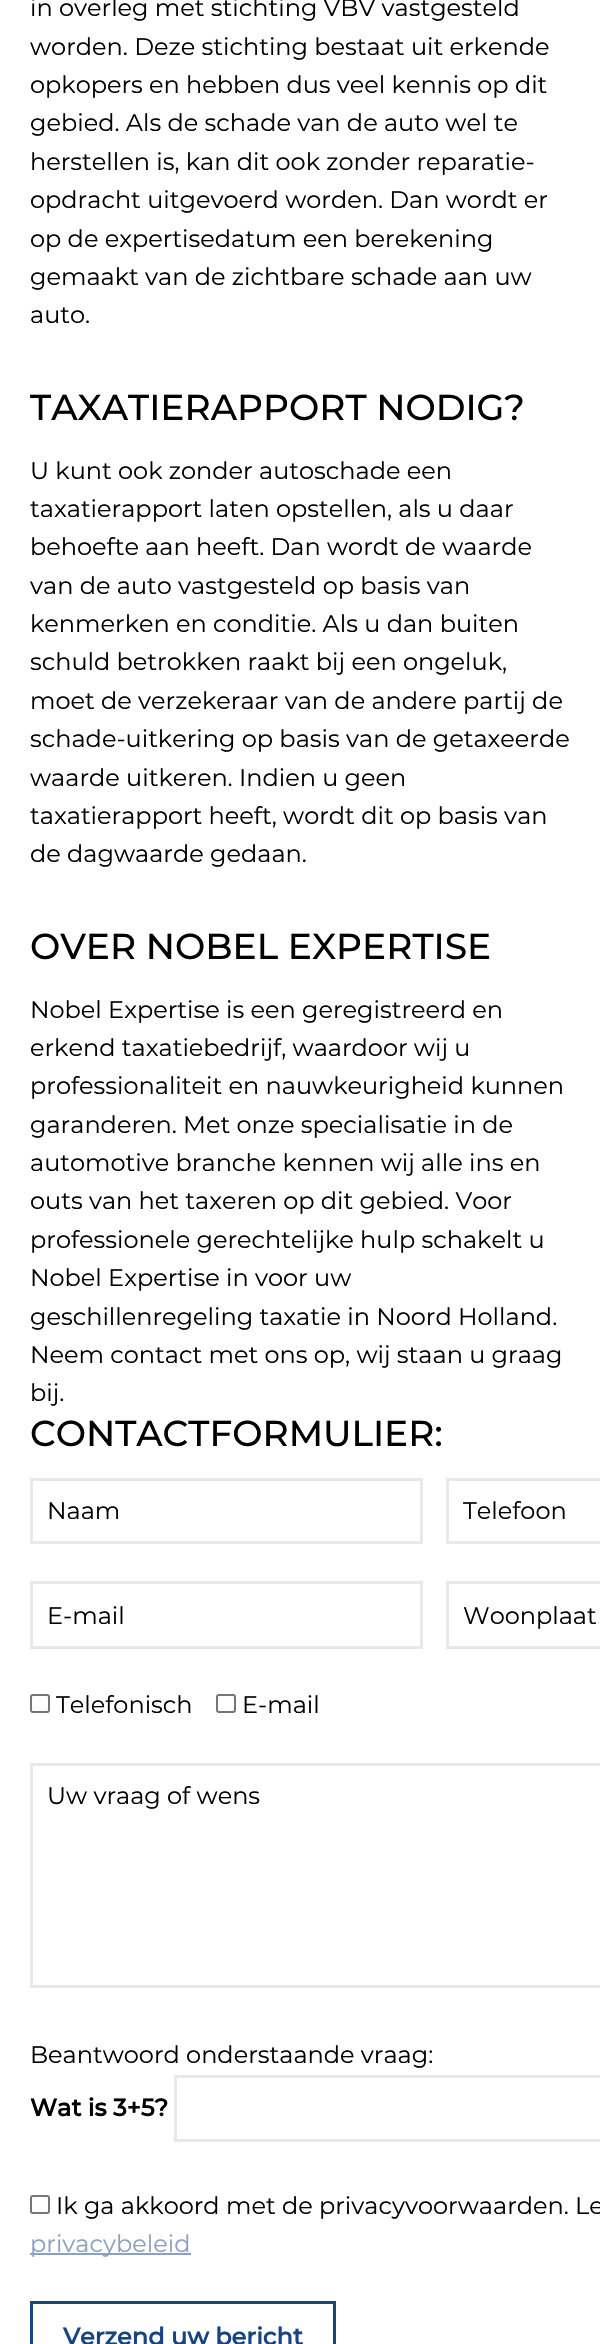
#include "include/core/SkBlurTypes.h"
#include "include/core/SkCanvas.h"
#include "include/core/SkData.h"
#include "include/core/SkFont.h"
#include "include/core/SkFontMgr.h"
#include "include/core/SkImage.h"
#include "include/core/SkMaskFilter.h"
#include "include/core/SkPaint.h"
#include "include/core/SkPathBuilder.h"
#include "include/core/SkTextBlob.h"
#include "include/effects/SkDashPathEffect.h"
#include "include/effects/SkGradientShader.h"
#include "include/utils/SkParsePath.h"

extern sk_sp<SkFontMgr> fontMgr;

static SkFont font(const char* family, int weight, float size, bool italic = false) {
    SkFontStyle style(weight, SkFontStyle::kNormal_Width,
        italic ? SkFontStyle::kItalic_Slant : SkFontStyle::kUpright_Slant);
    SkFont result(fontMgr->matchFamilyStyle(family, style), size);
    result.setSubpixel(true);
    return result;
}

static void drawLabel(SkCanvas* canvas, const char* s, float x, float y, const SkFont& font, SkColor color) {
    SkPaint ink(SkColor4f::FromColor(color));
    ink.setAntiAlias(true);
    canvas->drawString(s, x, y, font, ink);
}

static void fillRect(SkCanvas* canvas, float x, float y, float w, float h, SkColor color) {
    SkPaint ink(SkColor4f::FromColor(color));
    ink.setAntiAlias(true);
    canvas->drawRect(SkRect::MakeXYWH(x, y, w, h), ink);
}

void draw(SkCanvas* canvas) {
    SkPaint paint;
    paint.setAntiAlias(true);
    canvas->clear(0xFFFFFFFF);
    SkFont font1 = font("Montserrat", 400, 24);
    drawLabel(canvas, "in overleg met stichting VBV vastgesteld", 30, 16, font1, 0xFF000000);
    drawLabel(canvas, "worden. Deze stichting bestaat uit erkende", 30, 55, font1, 0xFF000000);
    drawLabel(canvas, "opkopers en hebben dus veel kennis op dit", 30, 93, font1, 0xFF000000);
    drawLabel(canvas, "gebied. Als de schade van de auto wel te", 30, 131, font1, 0xFF000000);
    drawLabel(canvas, "herstellen is, kan dit ook zonder reparatie-", 30, 170, font1, 0xFF000000);
    drawLabel(canvas, "opdracht uitgevoerd worden. Dan wordt er", 30, 208, font1, 0xFF000000);
    drawLabel(canvas, "op de expertisedatum een berekening", 30, 247, font1, 0xFF000000);
    drawLabel(canvas, "gemaakt van de zichtbare schade aan uw", 30, 285, font1, 0xFF000000);
    drawLabel(canvas, "auto.", 30, 323, font1, 0xFF000000);
    SkFont font2 = font("Montserrat", 500, 36);
    drawLabel(canvas, "TAXATIERAPPORT NODIG?", 30, 420, font2, 0xFF000000);
    drawLabel(canvas, "U kunt ook zonder autoschade een", 30, 479, font1, 0xFF000000);
    drawLabel(canvas, "taxatierapport laten opstellen, als u daar", 30, 517, font1, 0xFF000000);
    drawLabel(canvas, "behoefte aan heeft. Dan wordt de waarde", 30, 555, font1, 0xFF000000);
    drawLabel(canvas, "van de auto vastgesteld op basis van", 30, 594, font1, 0xFF000000);
    drawLabel(canvas, "kenmerken en conditie. Als u dan buiten", 30, 632, font1, 0xFF000000);
    drawLabel(canvas, "schuld betrokken raakt bij een ongeluk,", 30, 670, font1, 0xFF000000);
    drawLabel(canvas, "moet de verzekeraar van de andere partij de", 30, 709, font1, 0xFF000000);
    drawLabel(canvas, "schade-uitkering op basis van de getaxeerde", 30, 747, font1, 0xFF000000);
    drawLabel(canvas, "waarde uitkeren. Indien u geen", 30, 786, font1, 0xFF000000);
    drawLabel(canvas, "taxatierapport heeft, wordt dit op basis van", 30, 824, font1, 0xFF000000);
    drawLabel(canvas, "de dagwaarde gedaan.", 30, 862, font1, 0xFF000000);
    drawLabel(canvas, "OVER NOBEL EXPERTISE", 30, 959, font2, 0xFF000000);
    drawLabel(canvas, "Nobel Expertise is een geregistreerd en", 30, 1018, font1, 0xFF000000);
    drawLabel(canvas, "erkend taxatiebedrijf, waardoor wij u", 30, 1056, font1, 0xFF000000);
    drawLabel(canvas, "professionaliteit en nauwkeurigheid kunnen", 30, 1094, font1, 0xFF000000);
    drawLabel(canvas, "garanderen. Met onze specialisatie in de", 30, 1133, font1, 0xFF000000);
    drawLabel(canvas, "automotive branche kennen wij alle ins en", 30, 1171, font1, 0xFF000000);
    drawLabel(canvas, "outs van het taxeren op dit gebied. Voor", 30, 1209, font1, 0xFF000000);
    drawLabel(canvas, "professionele gerechtelijke hulp schakelt u", 30, 1248, font1, 0xFF000000);
    drawLabel(canvas, "Nobel Expertise in voor uw", 30, 1286, font1, 0xFF000000);
    drawLabel(canvas, "geschillenregeling taxatie in Noord Holland.", 30, 1325, font1, 0xFF000000);
    drawLabel(canvas, "Neem contact met ons op, wij staan u graag", 30, 1363, font1, 0xFF000000);
    drawLabel(canvas, "bij.", 30, 1401, font1, 0xFF000000);
    drawLabel(canvas, "CONTACTFORMULIER:", 30, 1446, font2, 0xFF000000);
    paint.setStroke(true);
    paint.setStrokeWidth(3);
    paint.setColor(0xFFE8E8E8);
    canvas->drawRect(SkRect::MakeXYWH(31.5f, 1479.5f, 390, 63), paint);
    drawLabel(canvas, "Naam", 47, 1519, font1, 0xFF000000);
    canvas->drawRect(SkRect::MakeXYWH(447.5f, 1479.5f, 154, 63), paint);
    drawLabel(canvas, "Telefoon", 463, 1519, font1, 0xFF000000);
    canvas->drawRect(SkRect::MakeXYWH(31.5f, 1582.5f, 390, 65), paint);
    drawLabel(canvas, "E-mail", 47, 1624, font1, 0xFF000000);
    canvas->drawRect(SkRect::MakeXYWH(447.5f, 1582.5f, 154, 65), paint);
    drawLabel(canvas, "Woonplaat", 463, 1624, font1, 0xFF000000);
    paint.setStrokeWidth(2);
    paint.setColor(0xFF767676);
    canvas->drawRoundRect(SkRect::MakeXYWH(31, 1695, 18, 17), 2, 2, paint);
    drawLabel(canvas, "Telefonisch", 56, 1713, font1, 0xFF000000);
    canvas->drawRoundRect(SkRect::MakeXYWH(217, 1695, 18, 17), 2, 2, paint);
    drawLabel(canvas, "E-mail", 242, 1713, font1, 0xFF000000);
    paint.setStrokeWidth(3);
    paint.setColor(0xFFE8E8E8);
    canvas->drawRect(SkRect::MakeXYWH(31.5f, 1764.5f, 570, 222), paint);
    drawLabel(canvas, "Uw vraag of wens", 47, 1804, font1, 0xFF000000);
    drawLabel(canvas, "Beantwoord onderstaande vraag:", 30, 2063, font1, 0xFF000000);
    SkFont font3 = font("Montserrat", 700, 24);
    drawLabel(canvas, "Wat is 3+5?", 30, 2116, font3, 0xFF000000);
    canvas->drawRect(SkRect::MakeXYWH(175.5f, 2076.5f, 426, 64), paint);
    paint.setStrokeWidth(2);
    paint.setColor(0xFF767676);
    canvas->drawRoundRect(SkRect::MakeXYWH(31, 2196, 18, 17), 2, 2, paint);
    drawLabel(canvas, "Ik ga akkoord met de privacyvoorwaarden.", 56, 2214, font1, 0xFF000000);
    drawLabel(canvas, "Le", 575, 2214, font1, 0xFF000000);
    fillRect(canvas, 30, 2253, 161, 2, 0xFF8CA1C0);
    drawLabel(canvas, "privacybeleid", 30, 2252, font1, 0xFF8CA1C0);
    paint.setStrokeWidth(3);
    paint.setColor(0xFF184580);
    canvas->drawRect(SkRect::MakeXYWH(31.5f, 2302.5f, 303, 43), paint);
    drawLabel(canvas, "Verzend uw bericht", 63, 2345, font3, 0xFF184580);
}
